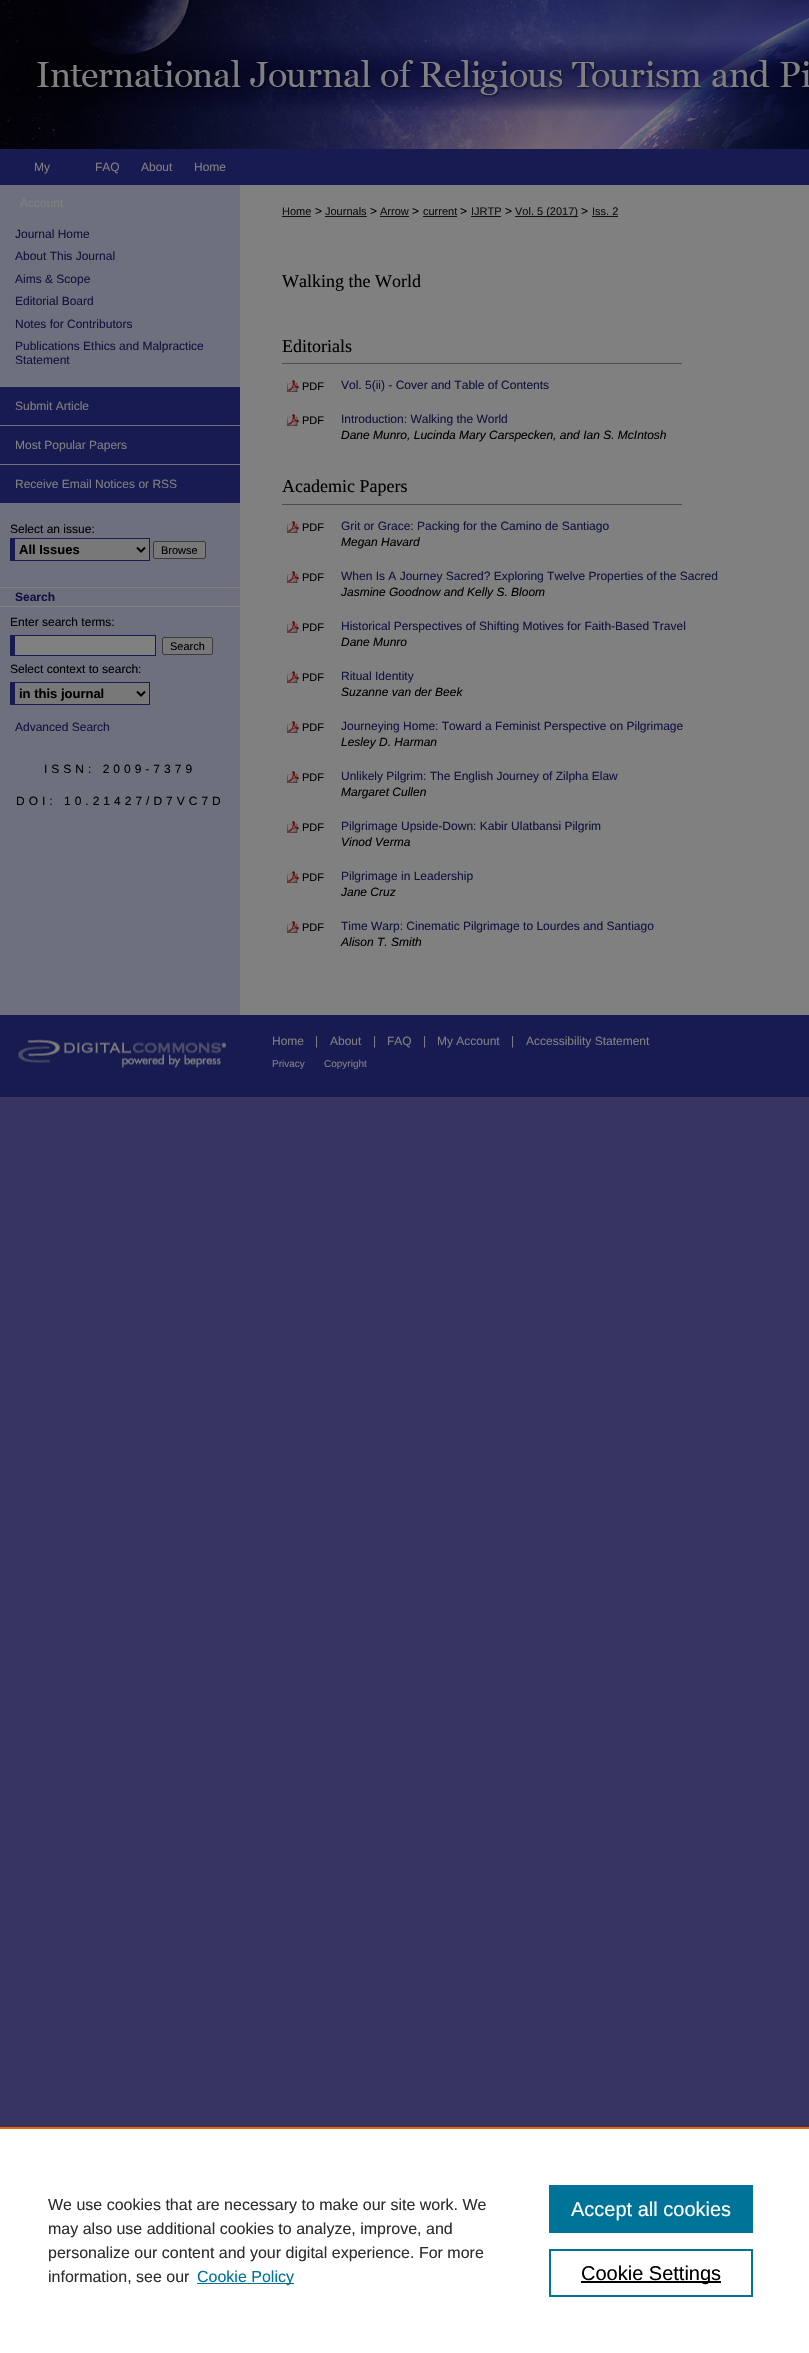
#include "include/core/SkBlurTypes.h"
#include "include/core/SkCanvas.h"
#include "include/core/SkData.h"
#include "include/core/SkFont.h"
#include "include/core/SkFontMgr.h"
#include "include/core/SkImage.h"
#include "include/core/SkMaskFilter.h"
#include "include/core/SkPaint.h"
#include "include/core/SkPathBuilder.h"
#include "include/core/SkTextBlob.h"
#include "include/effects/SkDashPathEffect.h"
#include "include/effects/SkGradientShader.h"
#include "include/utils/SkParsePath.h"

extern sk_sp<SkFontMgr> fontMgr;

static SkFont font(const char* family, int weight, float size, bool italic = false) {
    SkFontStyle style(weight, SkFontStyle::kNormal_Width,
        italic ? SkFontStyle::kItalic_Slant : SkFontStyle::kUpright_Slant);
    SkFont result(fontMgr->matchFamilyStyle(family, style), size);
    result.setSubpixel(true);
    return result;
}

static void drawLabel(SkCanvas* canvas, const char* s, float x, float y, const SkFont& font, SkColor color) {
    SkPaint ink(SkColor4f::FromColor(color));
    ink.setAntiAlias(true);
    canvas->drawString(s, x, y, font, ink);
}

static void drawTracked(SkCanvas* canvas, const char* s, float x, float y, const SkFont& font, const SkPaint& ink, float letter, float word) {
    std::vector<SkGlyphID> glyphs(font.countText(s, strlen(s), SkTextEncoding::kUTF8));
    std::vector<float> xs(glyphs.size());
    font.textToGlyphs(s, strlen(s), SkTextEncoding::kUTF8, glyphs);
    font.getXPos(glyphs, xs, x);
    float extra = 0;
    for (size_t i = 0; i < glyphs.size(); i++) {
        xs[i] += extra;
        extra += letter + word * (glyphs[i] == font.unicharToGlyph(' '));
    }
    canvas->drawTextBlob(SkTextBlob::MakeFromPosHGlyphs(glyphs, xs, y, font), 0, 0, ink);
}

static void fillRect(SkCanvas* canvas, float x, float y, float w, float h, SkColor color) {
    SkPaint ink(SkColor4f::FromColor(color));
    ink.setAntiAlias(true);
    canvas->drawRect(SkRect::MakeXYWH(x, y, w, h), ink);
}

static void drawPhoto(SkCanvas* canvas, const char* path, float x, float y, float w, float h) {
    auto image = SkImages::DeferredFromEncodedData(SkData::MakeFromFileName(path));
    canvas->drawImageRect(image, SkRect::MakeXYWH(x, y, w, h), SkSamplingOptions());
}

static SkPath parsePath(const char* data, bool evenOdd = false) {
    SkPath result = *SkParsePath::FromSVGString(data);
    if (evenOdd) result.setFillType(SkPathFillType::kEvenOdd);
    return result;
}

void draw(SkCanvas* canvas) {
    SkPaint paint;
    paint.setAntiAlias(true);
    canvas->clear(0xFF383461);
    drawPhoto(canvas, "assets/img1.png", 0, 0, 809, 149);
    fillRect(canvas, 0, 149, 809, 36, 0xFF181B51);
    SkFont font1 = font("Liberation Sans", 400, 12);
    drawLabel(canvas, "My", 34, 171, font1, 0xFF808080);
    fillRect(canvas, 0, 185, 240, 830, 0xFF6F707D);
    drawLabel(canvas, "Account", 20, 207, font1, 0xFF808080);
    drawLabel(canvas, "FAQ", 95, 171, font1, 0xFF808080);
    drawLabel(canvas, "About", 141, 171, font1, 0xFF808080);
    drawLabel(canvas, "Home", 194, 171, font1, 0xFF808080);
    fillRect(canvas, 240, 185, 569, 830, 0xFF808080);
    drawLabel(canvas, "Journal Home", 15, 238, font1, 0xFF11133E);
    drawLabel(canvas, "About This Journal", 15, 260, font1, 0xFF11133E);
    drawLabel(canvas, "Aims & Scope", 15, 283, font1, 0xFF11133E);
    drawLabel(canvas, "Editorial Board", 15, 305, font1, 0xFF11133E);
    drawLabel(canvas, "Notes for Contributors", 15, 328, font1, 0xFF11133E);
    drawLabel(canvas, "Publications Ethics and Malpractice", 15, 350, font1, 0xFF11133E);
    drawLabel(canvas, "Statement", 15, 364, font1, 0xFF11133E);
    fillRect(canvas, 0, 387, 240, 38, 0xFF181B51);
    drawLabel(canvas, "Submit Article", 15, 410, font1, 0xFF808080);
    fillRect(canvas, 0, 426, 240, 38, 0xFF181B51);
    drawLabel(canvas, "Most Popular Papers", 15, 449, font1, 0xFF808080);
    fillRect(canvas, 0, 465, 240, 38, 0xFF181B51);
    drawLabel(canvas, "Receive Email Notices or RSS", 15, 488, font1, 0xFF808080);
    drawLabel(canvas, "Select an issue:", 10, 533, font1, 0xFF000000);
    fillRect(canvas, 15, 539, 134, 21, 0xFF787878);
    fillRect(canvas, 10, 538, 140, 1, 0xFF181B51);
    fillRect(canvas, 149, 538, 1, 23, 0xFF181B51);
    fillRect(canvas, 10, 560, 140, 1, 0xFF181B51);
    fillRect(canvas, 10, 538, 5, 23, 0xFF181B51);
    paint.setStroke(true);
    paint.setStrokeWidth(2);
    paint.setColor(0xFF000000);
    canvas->drawPath(parsePath("M137 547.5L141 551.5L145 547.5"), paint);
    SkFont font2 = font("Liberation Sans", 700, 13);
    drawLabel(canvas, "All Issues", 19, 554, font2, 0xFF000000);
    paint.setStroke(false);
    paint.setColor(0xFF787878);
    canvas->drawRoundRect(SkRect::MakeXYWH(153.5f, 541.5f, 52, 17), 1.5f, 1.5f, paint);
    paint.setStroke(true);
    paint.setStrokeWidth(1);
    paint.setColor(0xFF3B3B3B);
    canvas->drawRoundRect(SkRect::MakeXYWH(153.5f, 541.5f, 52, 17), 1.5f, 1.5f, paint);
    SkFont font3 = font("Liberation Sans", 400, 11);
    drawLabel(canvas, "Browse", 161, 554, font3, 0xFF000000);
    fillRect(canvas, 0, 587, 240, 1, 0xFF808080);
    fillRect(canvas, 0, 606, 240, 1, 0xFF808080);
    SkFont font4 = font("Liberation Sans", 700, 12);
    drawLabel(canvas, "Search", 15, 601, font4, 0xFF11133E);
    drawLabel(canvas, "Enter search terms:", 10, 626, font1, 0xFF000000);
    fillRect(canvas, 15, 636, 140, 19, 0xFF808080);
    fillRect(canvas, 10, 635, 146, 1, 0xFF181B51);
    fillRect(canvas, 155, 635, 1, 21, 0xFF181B51);
    fillRect(canvas, 10, 655, 146, 1, 0xFF181B51);
    fillRect(canvas, 10, 635, 5, 21, 0xFF181B51);
    paint.setStroke(false);
    paint.setColor(0xFF787878);
    canvas->drawRoundRect(SkRect::MakeXYWH(162.5f, 637.5f, 50, 17), 1.5f, 1.5f, paint);
    paint.setStroke(true);
    paint.setColor(0xFF3B3B3B);
    canvas->drawRoundRect(SkRect::MakeXYWH(162.5f, 637.5f, 50, 17), 1.5f, 1.5f, paint);
    drawLabel(canvas, "Search", 170, 650, font3, 0xFF000000);
    drawLabel(canvas, "Select context to search:", 10, 673, font1, 0xFF000000);
    fillRect(canvas, 15, 683, 134, 21, 0xFF787878);
    fillRect(canvas, 10, 682, 140, 1, 0xFF181B51);
    fillRect(canvas, 149, 682, 1, 23, 0xFF181B51);
    fillRect(canvas, 10, 704, 140, 1, 0xFF181B51);
    fillRect(canvas, 10, 682, 5, 23, 0xFF181B51);
    paint.setStrokeWidth(2);
    paint.setColor(0xFF000000);
    canvas->drawPath(parsePath("M137 691.5L141 695.5L145 691.5"), paint);
    drawLabel(canvas, "in this journal", 19, 698, font2, 0xFF000000);
    drawLabel(canvas, "Advanced Search", 15, 731, font1, 0xFF11133E);
    paint.setStroke(false);
    drawTracked(canvas, "ISSN: 2009-7379", 44, 773, font1, paint, 4, 0);
    drawTracked(canvas, "DOI: 10.21427/D7VC7D", 16, 805, font1, paint, 4, 0);
    drawLabel(canvas, "Home", 282, 215, font3, 0xFF111111);
    fillRect(canvas, 282, 216, 29, 1, 0xFF111111);
    drawLabel(canvas, ">", 315, 215, font1, 0xFF000000);
    drawLabel(canvas, "Journals", 325, 215, font3, 0xFF111111);
    fillRect(canvas, 325, 216, 42, 1, 0xFF111111);
    drawLabel(canvas, ">", 370, 215, font1, 0xFF000000);
    drawLabel(canvas, "Arrow", 380, 215, font3, 0xFF111111);
    fillRect(canvas, 380, 216, 29, 1, 0xFF111111);
    drawLabel(canvas, ">", 412, 215, font1, 0xFF000000);
    drawLabel(canvas, "current", 423, 215, font3, 0xFF111111);
    fillRect(canvas, 423, 216, 34, 1, 0xFF111111);
    drawLabel(canvas, ">", 460, 215, font1, 0xFF000000);
    drawLabel(canvas, "IJRTP", 471, 215, font3, 0xFF111111);
    fillRect(canvas, 471, 216, 30, 1, 0xFF111111);
    drawLabel(canvas, ">", 505, 215, font1, 0xFF000000);
    fillRect(canvas, 515, 216, 63, 1, 0xFF111111);
    drawLabel(canvas, "Vol. 5 (2017)", 515, 215, font3, 0xFF111111);
    drawLabel(canvas, ">", 581, 215, font1, 0xFF000000);
    drawLabel(canvas, "Iss. 2", 592, 215, font3, 0xFF111111);
    fillRect(canvas, 592, 216, 26, 1, 0xFF111111);
    SkFont font5 = font("Liberation Serif", 400, 18);
    drawLabel(canvas, "Walking the World", 282, 287, font5, 0xFF000000);
    fillRect(canvas, 282, 363, 400, 1, 0xFF4D4D4D);
    drawLabel(canvas, "Editorials", 282, 352, font5, 0xFF000000);
    drawPhoto(canvas, "assets/img2.png", 287, 380, 12, 12);
    drawLabel(canvas, "PDF", 302, 390, font3, 0xFF000000);
    drawLabel(canvas, "Vol. 5(ii) - Cover and Table of Contents", 341, 389, font1, 0xFF11133E);
    drawPhoto(canvas, "assets/img2.png", 287, 414, 12, 12);
    drawLabel(canvas, "PDF", 302, 424, font3, 0xFF000000);
    drawLabel(canvas, "Introduction: Walking the World", 341, 423, font1, 0xFF11133E);
    SkFont font6 = font("Liberation Sans", 400, 12, true);
    drawLabel(canvas, "Dane Munro, Lucinda Mary Carspecken, and Ian S. McIntosh", 341, 439, font6, 0xFF000000);
    fillRect(canvas, 282, 504, 400, 1, 0xFF4D4D4D);
    drawLabel(canvas, "Academic Papers", 282, 492, font5, 0xFF000000);
    drawPhoto(canvas, "assets/img2.png", 287, 521, 12, 12);
    drawLabel(canvas, "PDF", 302, 531, font3, 0xFF000000);
    drawLabel(canvas, "Grit or Grace: Packing for the Camino de Santiago", 341, 530, font1, 0xFF11133E);
    drawLabel(canvas, "Megan Havard", 341, 546, font6, 0xFF000000);
    drawPhoto(canvas, "assets/img2.png", 287, 571, 12, 12);
    drawLabel(canvas, "PDF", 302, 581, font3, 0xFF000000);
    drawLabel(canvas, "When Is A Journey Sacred? Exploring Twelve Properties of the Sacred", 341, 580, font1, 0xFF11133E);
    drawLabel(canvas, "Jasmine Goodnow and Kelly S. Bloom", 341, 596, font6, 0xFF000000);
    drawPhoto(canvas, "assets/img2.png", 287, 621, 12, 12);
    drawLabel(canvas, "PDF", 302, 631, font3, 0xFF000000);
    drawLabel(canvas, "Historical Perspectives of Shifting Motives for Faith-Based Travel", 341, 630, font1, 0xFF11133E);
    drawLabel(canvas, "Dane Munro", 341, 646, font6, 0xFF000000);
    drawPhoto(canvas, "assets/img2.png", 287, 671, 12, 12);
    drawLabel(canvas, "PDF", 302, 681, font3, 0xFF000000);
    drawLabel(canvas, "Ritual Identity", 341, 680, font1, 0xFF11133E);
    drawLabel(canvas, "Suzanne van der Beek", 341, 696, font6, 0xFF000000);
    drawPhoto(canvas, "assets/img2.png", 287, 721, 12, 12);
    drawLabel(canvas, "PDF", 302, 731, font3, 0xFF000000);
    drawLabel(canvas, "Journeying Home: Toward a Feminist Perspective on Pilgrimage", 341, 730, font1, 0xFF11133E);
    drawLabel(canvas, "Lesley D. Harman", 341, 746, font6, 0xFF000000);
    drawPhoto(canvas, "assets/img2.png", 287, 771, 12, 12);
    drawLabel(canvas, "PDF", 302, 781, font3, 0xFF000000);
    drawLabel(canvas, "Unlikely Pilgrim: The English Journey of Zilpha Elaw", 341, 780, font1, 0xFF11133E);
    drawLabel(canvas, "Margaret Cullen", 341, 796, font6, 0xFF000000);
    drawPhoto(canvas, "assets/img2.png", 287, 821, 12, 12);
    drawLabel(canvas, "PDF", 302, 831, font3, 0xFF000000);
    drawLabel(canvas, "Pilgrimage Upside-Down: Kabir Ulatbansi Pilgrim", 341, 830, font1, 0xFF11133E);
    drawLabel(canvas, "Vinod Verma", 341, 846, font6, 0xFF000000);
    drawPhoto(canvas, "assets/img2.png", 287, 871, 12, 12);
    drawLabel(canvas, "PDF", 302, 881, font3, 0xFF000000);
    drawLabel(canvas, "Pilgrimage in Leadership", 341, 880, font1, 0xFF11133E);
    drawLabel(canvas, "Jane Cruz", 341, 896, font6, 0xFF000000);
    drawPhoto(canvas, "assets/img2.png", 287, 921, 12, 12);
    drawLabel(canvas, "PDF", 302, 931, font3, 0xFF000000);
    drawLabel(canvas, "Time Warp: Cinematic Pilgrimage to Lourdes and Santiago", 341, 930, font1, 0xFF11133E);
    drawLabel(canvas, "Alison T. Smith", 341, 946, font6, 0xFF000000);
    fillRect(canvas, 0, 1015, 809, 82, 0xFF181B51);
    drawPhoto(canvas, "assets/img3.png", 18, 1039, 208, 29);
    drawLabel(canvas, "Home", 272, 1045, font1, 0xFF808080);
    drawLabel(canvas, "|", 315, 1045, font1, 0xFF808080);
    drawLabel(canvas, "About", 330, 1045, font1, 0xFF808080);
    drawLabel(canvas, "|", 373, 1045, font1, 0xFF808080);
    drawLabel(canvas, "FAQ", 387, 1045, font1, 0xFF808080);
    drawLabel(canvas, "|", 423, 1045, font1, 0xFF808080);
    drawLabel(canvas, "My Account", 437, 1045, font1, 0xFF808080);
    drawLabel(canvas, "|", 511, 1045, font1, 0xFF808080);
    drawLabel(canvas, "Accessibility Statement", 526, 1045, font1, 0xFF808080);
    SkFont font7 = font("Liberation Sans", 400, 10);
    drawLabel(canvas, "Privacy", 272, 1067, font7, 0xFF808080);
    drawLabel(canvas, "Copyright", 324, 1067, font7, 0xFF808080);
    fillRect(canvas, 0, 2129, 809, 224, 0xFFFFFFFF);
    fillRect(canvas, 0, 2127, 809, 2, 0xFFEB6500);
    SkFont font8 = font("Liberation Sans", 400, 16);
    drawLabel(canvas, "We use cookies that are necessary to make our site work. We", 48, 2210, font8, 0xFF2E2E2E);
    drawLabel(canvas, "may also use additional cookies to analyze, improve, and", 48, 2234, font8, 0xFF2E2E2E);
    drawLabel(canvas, "personalize our content and your digital experience. For more", 48, 2258, font8, 0xFF2E2E2E);
    drawLabel(canvas, "information, see our", 48, 2282, font8, 0xFF2E2E2E);
    fillRect(canvas, 197, 2283, 97, 1, 0xFF007398);
    drawLabel(canvas, "Cookie Policy", 197, 2282, font8, 0xFF007398);
    fillRect(canvas, 549, 2185, 204, 48, 0xFF007398);
    SkFont font9 = font("Liberation Sans", 400, 20);
    drawLabel(canvas, "Accept all cookies", 571, 2216, font9, 0xFFFFFFFF);
    paint.setStroke(true);
    paint.setColor(0xFF007398);
    canvas->drawRect(SkRect::MakeXYWH(550, 2250, 202, 46), paint);
    fillRect(canvas, 581, 2281, 140, 2, 0xFF000000);
    drawLabel(canvas, "Cookie Settings", 581, 2280, font9, 0xFF000000);
}
